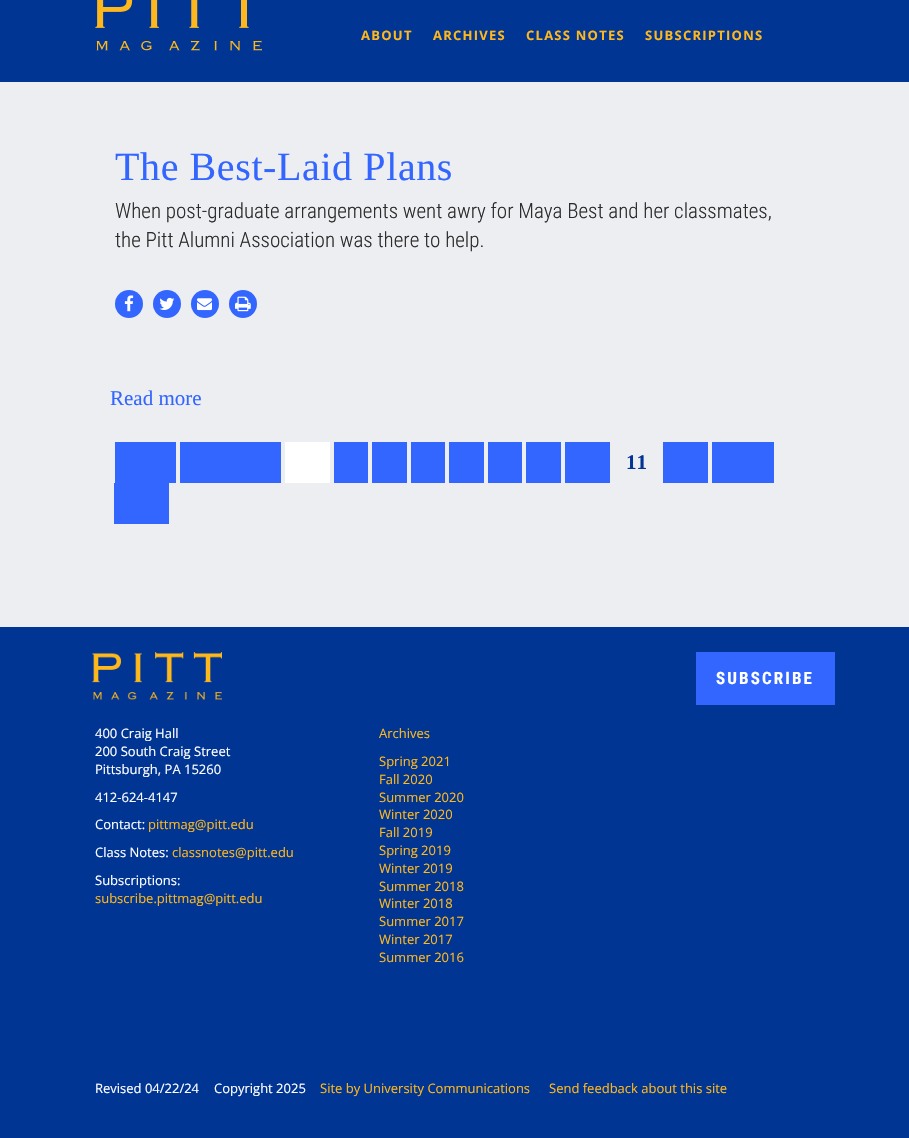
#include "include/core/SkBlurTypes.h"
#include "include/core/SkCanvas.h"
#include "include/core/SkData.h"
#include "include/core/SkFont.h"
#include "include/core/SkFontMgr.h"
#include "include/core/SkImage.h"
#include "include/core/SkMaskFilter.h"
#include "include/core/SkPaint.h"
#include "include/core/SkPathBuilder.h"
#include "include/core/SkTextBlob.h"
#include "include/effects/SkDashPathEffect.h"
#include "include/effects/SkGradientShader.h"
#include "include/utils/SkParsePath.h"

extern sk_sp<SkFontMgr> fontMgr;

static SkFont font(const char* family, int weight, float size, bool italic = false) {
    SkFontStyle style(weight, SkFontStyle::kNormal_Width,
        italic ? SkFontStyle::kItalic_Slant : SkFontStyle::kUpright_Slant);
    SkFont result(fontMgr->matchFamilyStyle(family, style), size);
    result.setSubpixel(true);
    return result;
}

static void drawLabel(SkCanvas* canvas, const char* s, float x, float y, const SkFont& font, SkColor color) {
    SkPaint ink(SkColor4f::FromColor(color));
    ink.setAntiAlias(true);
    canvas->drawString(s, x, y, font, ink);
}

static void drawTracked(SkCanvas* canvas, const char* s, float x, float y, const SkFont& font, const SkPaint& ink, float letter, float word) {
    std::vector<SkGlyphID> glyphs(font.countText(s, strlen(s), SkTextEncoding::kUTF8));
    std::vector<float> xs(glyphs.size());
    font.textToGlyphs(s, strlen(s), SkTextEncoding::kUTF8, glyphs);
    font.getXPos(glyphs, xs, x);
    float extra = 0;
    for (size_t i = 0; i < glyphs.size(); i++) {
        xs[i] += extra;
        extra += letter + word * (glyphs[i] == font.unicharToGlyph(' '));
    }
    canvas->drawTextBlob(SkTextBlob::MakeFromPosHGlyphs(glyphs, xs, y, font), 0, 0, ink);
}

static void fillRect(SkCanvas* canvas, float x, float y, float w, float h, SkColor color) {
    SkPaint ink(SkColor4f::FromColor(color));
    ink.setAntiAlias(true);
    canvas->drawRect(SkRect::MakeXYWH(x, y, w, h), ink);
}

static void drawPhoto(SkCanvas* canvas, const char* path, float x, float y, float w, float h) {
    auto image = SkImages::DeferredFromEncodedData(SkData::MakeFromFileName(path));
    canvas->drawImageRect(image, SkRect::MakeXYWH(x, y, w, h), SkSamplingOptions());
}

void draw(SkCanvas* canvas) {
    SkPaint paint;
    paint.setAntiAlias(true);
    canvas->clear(0xFFEDEEF2);
    fillRect(canvas, 0, 0, 909, 82, 0xFF003594);
    drawPhoto(canvas, "assets/img1.png", 95, 0, 167, 51);
    SkFont font1 = font("Open Sans", 700, 13);
    paint.setColor(0xFFFFB81C);
    drawTracked(canvas, "ABOUT", 361, 40, font1, paint, 1.25f, 0);
    drawTracked(canvas, "ARCHIVES", 433, 40, font1, paint, 1.25f, 0);
    drawTracked(canvas, "CLASS NOTES", 526, 40, font1, paint, 1.25f, 0);
    drawTracked(canvas, "SUBSCRIPTIONS", 645, 40, font1, paint, 1.25f, 0);
    SkFont font2 = font("Liberation Serif", 400, 40);
    paint.setColor(0xFF3366FF);
    drawTracked(canvas, "The Best-Laid Plans", 115, 180, font2, paint, 0.6f, 0);
    SkFont font3 = font("Roboto Condensed", 300, 21);
    drawLabel(canvas, "When post-graduate arrangements went awry for Maya Best and her classmates,", 115, 218, font3, 0xFF2B2B2B);
    drawLabel(canvas, "the Pitt Alumni Association was there to help.", 115, 247, font3, 0xFF2B2B2B);
    canvas->drawCircle(129, 304, 14, paint);
    drawPhoto(canvas, "assets/img2.png", 124, 295, 10, 17);
    canvas->drawCircle(167, 304, 14, paint);
    drawPhoto(canvas, "assets/img3.png", 159, 297, 16, 13);
    canvas->drawCircle(205, 304, 14, paint);
    drawPhoto(canvas, "assets/img4.png", 197, 298, 15, 13);
    canvas->drawCircle(243, 304, 14, paint);
    drawPhoto(canvas, "assets/img5.png", 235, 296, 16, 16);
    SkFont font4 = font("Liberation Serif", 400, 21);
    drawLabel(canvas, "Read more", 110, 405, font4, 0xFF3366FF);
    fillRect(canvas, 115, 442, 61, 41, 0xFF3366FF);
    fillRect(canvas, 180, 442, 101, 41, 0xFF3366FF);
    fillRect(canvas, 285, 442, 45, 41, 0xFFFFFFFF);
    fillRect(canvas, 334, 442, 34, 41, 0xFF3366FF);
    fillRect(canvas, 372, 442, 35, 41, 0xFF3366FF);
    fillRect(canvas, 411, 442, 34, 41, 0xFF3366FF);
    fillRect(canvas, 449, 442, 35, 41, 0xFF3366FF);
    fillRect(canvas, 488, 442, 34, 41, 0xFF3366FF);
    fillRect(canvas, 526, 442, 35, 41, 0xFF3366FF);
    fillRect(canvas, 565, 442, 45, 41, 0xFF3366FF);
    SkFont font5 = font("Liberation Serif", 700, 21);
    drawLabel(canvas, "11", 626, 469, font5, 0xFF003594);
    fillRect(canvas, 663, 442, 45, 41, 0xFF3366FF);
    fillRect(canvas, 712, 442, 62, 41, 0xFF3366FF);
    fillRect(canvas, 114, 483, 55, 41, 0xFF3366FF);
    fillRect(canvas, 0, 627, 909, 511, 0xFF003594);
    drawPhoto(canvas, "assets/img6.png", 92, 652, 130, 48);
    fillRect(canvas, 696, 652, 139, 53, 0xFF3366FF);
    SkFont font6 = font("Roboto Condensed", 700, 17);
    paint.setColor(0xFFFFFFFF);
    drawTracked(canvas, "SUBSCRIBE", 716, 684, font6, paint, 2.1f, 0);
    SkFont font7 = font("Open Sans", 400, 13);
    drawLabel(canvas, "400 Craig Hall", 95, 738, font7, 0xFFFFFFFF);
    drawLabel(canvas, "200 South Craig Street", 95, 756, font7, 0xFFFFFFFF);
    drawLabel(canvas, "Pittsburgh, PA 15260", 95, 774, font7, 0xFFFFFFFF);
    drawLabel(canvas, "412-624-4147", 95, 802, font7, 0xFFFFFFFF);
    drawLabel(canvas, "Contact:", 95, 829, font7, 0xFFFFFFFF);
    drawLabel(canvas, "pittmag@pitt.edu", 148, 829, font7, 0xFFFFB81C);
    drawLabel(canvas, "Class Notes:", 95, 857, font7, 0xFFFFFFFF);
    drawLabel(canvas, "classnotes@pitt.edu", 172, 857, font7, 0xFFFFB81C);
    drawLabel(canvas, "Subscriptions:", 95, 885, font7, 0xFFFFFFFF);
    drawLabel(canvas, "subscribe.pittmag@pitt.edu", 95, 903, font7, 0xFFFFB81C);
    drawLabel(canvas, "Archives", 379, 738, font7, 0xFFFFB81C);
    drawLabel(canvas, "Spring 2021", 379, 766, font7, 0xFFFFB81C);
    drawLabel(canvas, "Fall 2020", 379, 784, font7, 0xFFFFB81C);
    drawLabel(canvas, "Summer 2020", 379, 802, font7, 0xFFFFB81C);
    drawLabel(canvas, "Winter 2020", 379, 819, font7, 0xFFFFB81C);
    drawLabel(canvas, "Fall 2019", 379, 837, font7, 0xFFFFB81C);
    drawLabel(canvas, "Spring 2019", 379, 855, font7, 0xFFFFB81C);
    drawLabel(canvas, "Winter 2019", 379, 873, font7, 0xFFFFB81C);
    drawLabel(canvas, "Summer 2018", 379, 891, font7, 0xFFFFB81C);
    drawLabel(canvas, "Winter 2018", 379, 908, font7, 0xFFFFB81C);
    drawLabel(canvas, "Summer 2017", 379, 926, font7, 0xFFFFB81C);
    drawLabel(canvas, "Winter 2017", 379, 944, font7, 0xFFFFB81C);
    drawLabel(canvas, "Summer 2016", 379, 962, font7, 0xFFFFB81C);
    drawLabel(canvas, "Revised 04/22/24", 95, 1093, font7, 0xFFFFFFFF);
    drawLabel(canvas, "Copyright 2025", 214, 1093, font7, 0xFFFFFFFF);
    drawLabel(canvas, "Site by University Communications", 320, 1093, font7, 0xFFFFB81C);
    drawLabel(canvas, "Send feedback about this site", 549, 1093, font7, 0xFFFFB81C);
}
